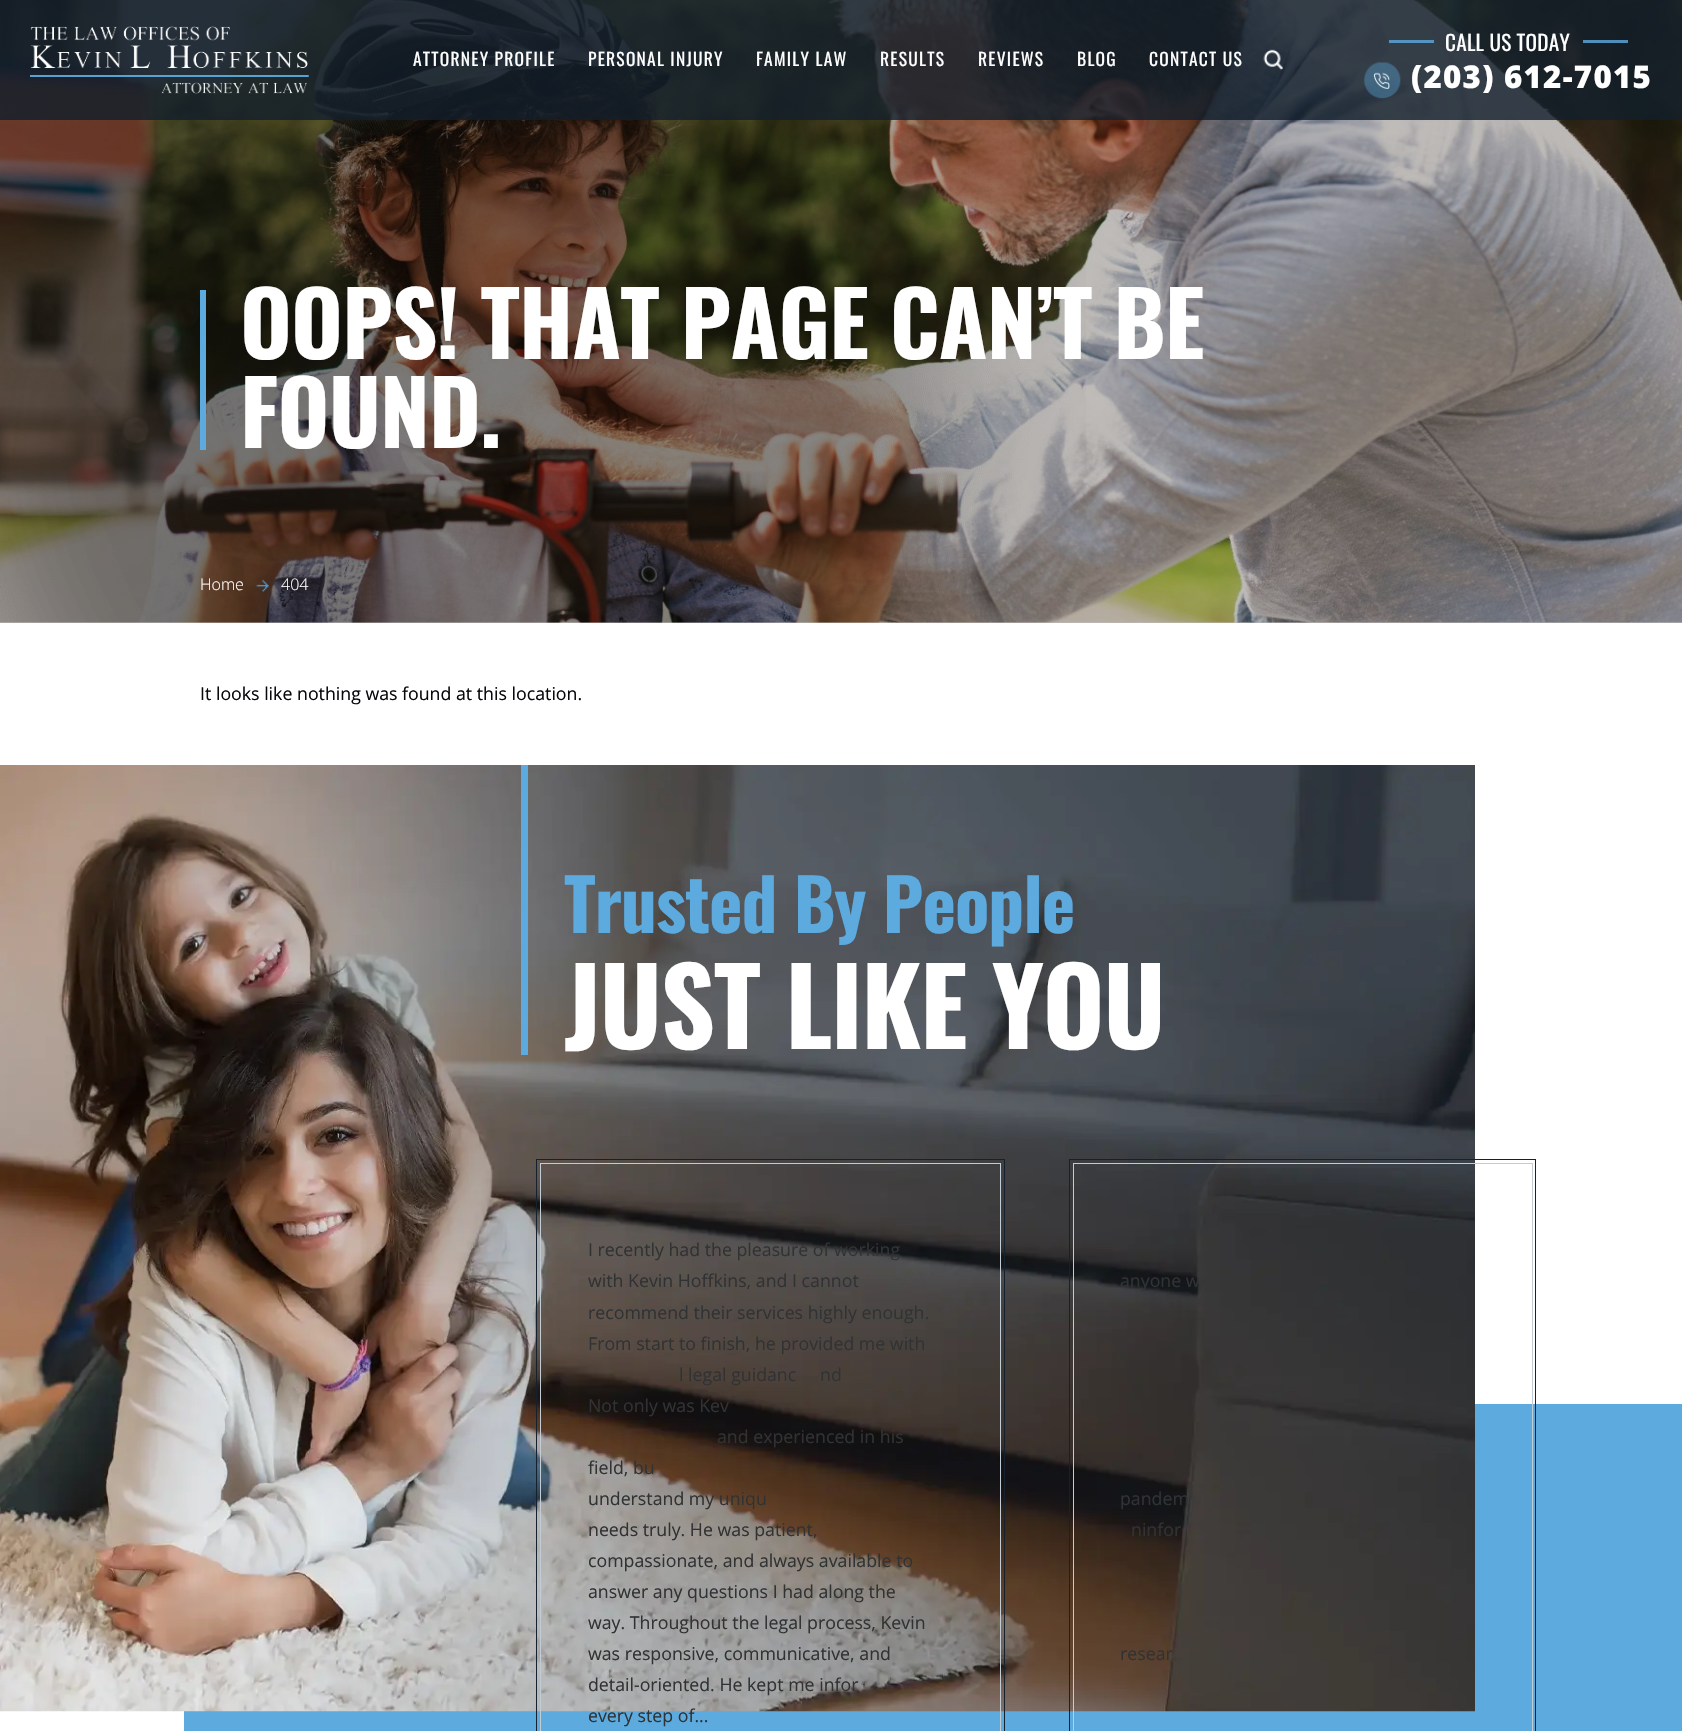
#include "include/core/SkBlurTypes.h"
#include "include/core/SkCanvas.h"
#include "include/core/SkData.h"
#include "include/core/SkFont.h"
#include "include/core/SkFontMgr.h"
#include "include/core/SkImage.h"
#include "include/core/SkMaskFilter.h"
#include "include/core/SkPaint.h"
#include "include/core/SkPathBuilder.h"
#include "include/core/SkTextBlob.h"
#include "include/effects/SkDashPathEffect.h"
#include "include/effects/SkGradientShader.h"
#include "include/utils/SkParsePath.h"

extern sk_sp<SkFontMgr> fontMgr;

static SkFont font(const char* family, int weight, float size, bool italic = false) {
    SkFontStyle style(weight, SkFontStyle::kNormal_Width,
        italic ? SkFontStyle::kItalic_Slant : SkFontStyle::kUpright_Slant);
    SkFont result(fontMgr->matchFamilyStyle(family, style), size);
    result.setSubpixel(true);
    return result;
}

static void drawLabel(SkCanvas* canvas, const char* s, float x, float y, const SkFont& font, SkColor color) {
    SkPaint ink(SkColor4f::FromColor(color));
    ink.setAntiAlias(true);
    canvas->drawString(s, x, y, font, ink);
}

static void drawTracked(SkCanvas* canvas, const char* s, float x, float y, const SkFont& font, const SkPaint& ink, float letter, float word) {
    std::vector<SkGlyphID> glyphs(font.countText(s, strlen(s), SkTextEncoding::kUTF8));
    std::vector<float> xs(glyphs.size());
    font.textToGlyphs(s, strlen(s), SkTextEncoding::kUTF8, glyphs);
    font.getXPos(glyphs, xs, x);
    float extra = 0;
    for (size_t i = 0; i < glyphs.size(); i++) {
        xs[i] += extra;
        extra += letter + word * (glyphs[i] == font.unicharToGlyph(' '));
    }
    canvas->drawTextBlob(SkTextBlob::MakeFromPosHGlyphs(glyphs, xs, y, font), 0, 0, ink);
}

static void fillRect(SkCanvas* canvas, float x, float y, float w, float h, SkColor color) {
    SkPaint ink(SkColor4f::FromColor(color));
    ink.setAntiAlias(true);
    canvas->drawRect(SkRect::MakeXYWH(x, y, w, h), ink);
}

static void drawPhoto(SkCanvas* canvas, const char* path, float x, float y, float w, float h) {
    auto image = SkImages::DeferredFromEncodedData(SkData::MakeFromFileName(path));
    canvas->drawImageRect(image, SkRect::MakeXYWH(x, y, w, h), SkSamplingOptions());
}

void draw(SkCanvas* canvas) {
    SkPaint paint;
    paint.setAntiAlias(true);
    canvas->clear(0xFFFFFFFF);
    fillRect(canvas, 0, 622, 1682, 1, 0xFFBFBFBF);
    drawPhoto(canvas, "assets/img4.png", 0, 0, 1682, 623);
    drawPhoto(canvas, "assets/img5.png", 0, 0, 1086, 623);
    fillRect(canvas, 0, 0, 1682, 120, 0xCC121E2A);
    drawPhoto(canvas, "assets/img1.png", 30, 26, 279, 68);
    SkFont font1 = font("Oswald", 400, 17.5f);
    paint.setColor(0xFFFFFFFF);
    drawTracked(canvas, "ATTORNEY PROFILE", 413, 66, font1, paint, 1.25f, 0);
    drawTracked(canvas, "PERSONAL INJURY", 588, 66, font1, paint, 1.25f, 0);
    drawTracked(canvas, "FAMILY LAW", 756, 66, font1, paint, 1.25f, 0);
    drawTracked(canvas, "RESULTS", 880, 66, font1, paint, 1.25f, 0);
    drawTracked(canvas, "REVIEWS", 978, 66, font1, paint, 1.25f, 0);
    drawTracked(canvas, "BLOG", 1077, 66, font1, paint, 1.25f, 0);
    drawTracked(canvas, "CONTACT US", 1149, 66, font1, paint, 1.25f, 0);
    drawPhoto(canvas, "assets/img2.png", 1263, 49, 20, 21);
    fillRect(canvas, 1389, 40, 45, 3, 0xFF5594C0);
    SkFont font2 = font("Oswald", 400, 21.25f);
    drawTracked(canvas, "CALL US TODAY", 1445, 51, font2, paint, 0.25f, 0);
    fillRect(canvas, 1583, 40, 45, 3, 0xCC5DAADE);
    drawPhoto(canvas, "assets/img3.png", 1363, 62, 38, 37);
    SkFont font3 = font("Open Sans", 800, 31.25f);
    drawTracked(canvas, "(203) 612-7015", 1411, 88, font3, paint, 1.25f, 0);
    fillRect(canvas, 200, 290, 6, 160, 0xFF5DAADE);
    SkFont font4 = font("Oswald", 700, 88.75f);
    drawTracked(canvas, "OOPS! THAT PAGE CAN’T BE", 240, 359, font4, paint, -0.9f, 0);
    drawTracked(canvas, "FOUND.", 240, 448, font4, paint, -0.9f, 0);
    SkFont font5 = font("Open Sans", 300, 16);
    drawLabel(canvas, "Home", 200, 590, font5, 0xFFFFFFFF);
    drawPhoto(canvas, "assets/img6.png", 256, 579, 13, 14);
    drawLabel(canvas, "404", 281, 590, font5, 0xFFFFFFFF);
    SkFont font6 = font("Open Sans", 400, 17.75f);
    drawLabel(canvas, "It looks like nothing was found at this location.", 200, 700, font6, 0xFF06080A);
    fillRect(canvas, 184, 1404, 1498, 327, 0xFF5DAADE);
    drawPhoto(canvas, "assets/img7.png", 0, 765, 1475, 947);
    fillRect(canvas, 521, 765, 7, 290, 0xFF5DAADE);
    SkFont font7 = font("Oswald", 700, 71.25f);
    paint.setColor(0xFF5DAADE);
    drawTracked(canvas, "Trusted By People", 564, 933, font7, paint, -1, 0);
    SkFont font8 = font("Oswald", 700, 106.25f);
    paint.setColor(0xFFFFFFFF);
    drawTracked(canvas, "JUST LIKE YOU", 564, 1049, font8, paint, -1.5f, 0);
    paint.setStroke(true);
    paint.setStrokeWidth(1);
    paint.setColor(0xFF15212F);
    canvas->drawRect(SkRect::MakeXYWH(536.5f, 1159.5f, 468, 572), paint);
    paint.setColor(0xFFC3CBD3);
    canvas->drawRect(SkRect::MakeXYWH(540.5f, 1163.5f, 460, 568), paint);
    drawLabel(canvas, "I recently had the pleasure of working", 588, 1256, font6, 0xFF303233);
    drawLabel(canvas, "with Kevin Hoffkins, and I cannot", 588, 1287, font6, 0xFF303233);
    drawLabel(canvas, "recommend their services highly enough.", 588, 1319, font6, 0xFF303233);
    drawLabel(canvas, "From start to finish, he provided me with", 588, 1350, font6, 0xFF303233);
    drawLabel(canvas, "l legal guidanc", 679, 1381, font6, 0xFF303233);
    drawLabel(canvas, "nd", 820, 1381, font6, 0xFF303233);
    drawLabel(canvas, "Not only was Kev", 588, 1412, font6, 0xFF303233);
    drawLabel(canvas, "and experienced in his", 717, 1443, font6, 0xFF303233);
    drawLabel(canvas, "field, bu", 588, 1474, font6, 0xFF303233);
    drawLabel(canvas, "understand my uniqu", 588, 1505, font6, 0xFF303233);
    drawLabel(canvas, "needs truly. He was patient,", 588, 1536, font6, 0xFF303233);
    drawLabel(canvas, "compassionate, and always available to", 588, 1567, font6, 0xFF303233);
    drawLabel(canvas, "answer any questions I had along the", 588, 1598, font6, 0xFF303233);
    drawLabel(canvas, "way. Throughout the legal process, Kevin", 588, 1629, font6, 0xFF303233);
    drawLabel(canvas, "was responsive, communicative, and", 588, 1660, font6, 0xFF303233);
    drawLabel(canvas, "detail-oriented. He kept me infor", 588, 1691, font6, 0xFF303233);
    drawLabel(canvas, "every step of...", 588, 1722, font6, 0xFF303233);
    paint.setColor(0xFF15212F);
    canvas->drawRect(SkRect::MakeXYWH(1069.5f, 1159.5f, 466, 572), paint);
    paint.setColor(0xFFC3CBD3);
    canvas->drawRect(SkRect::MakeXYWH(1073.5f, 1163.5f, 459, 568), paint);
    drawLabel(canvas, "anyone w", 1120, 1287, font6, 0xFF303233);
    drawLabel(canvas, "pandem", 1120, 1505, font6, 0xFF303233);
    drawLabel(canvas, "ninfor", 1131, 1536, font6, 0xFF303233);
    drawLabel(canvas, "resear", 1120, 1660, font6, 0xFF303233);
}
